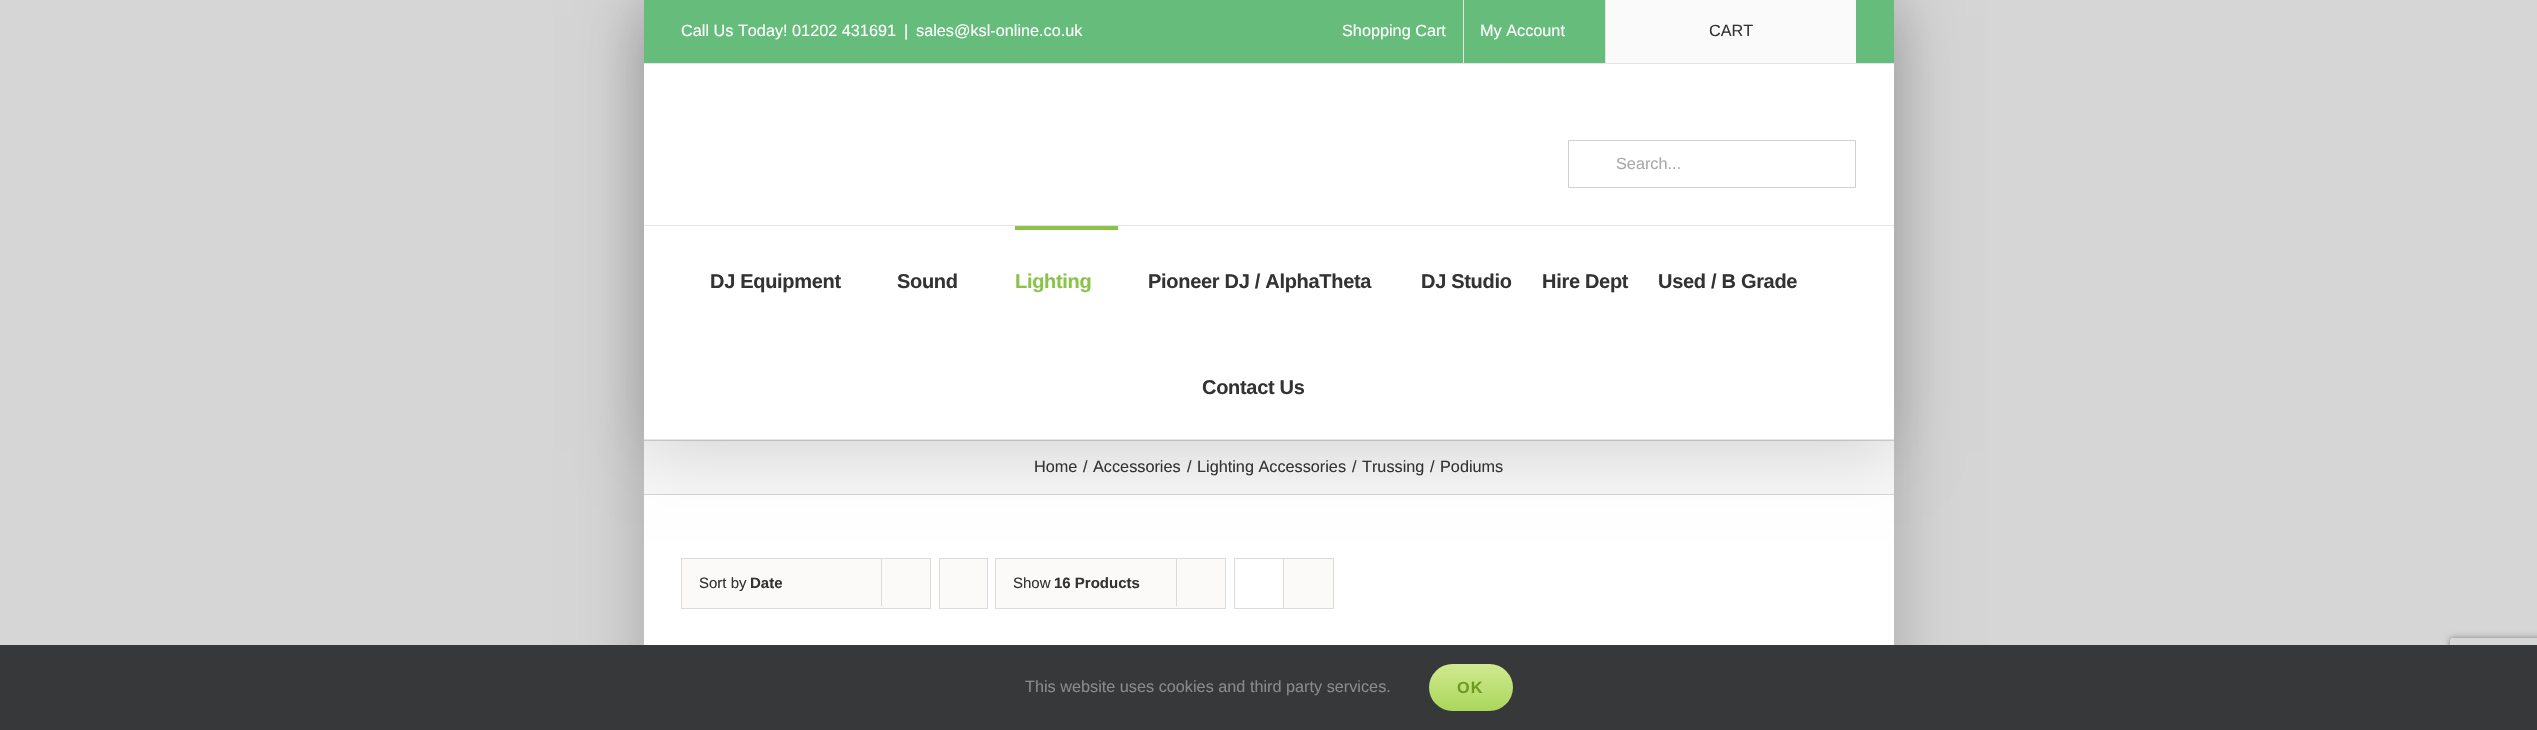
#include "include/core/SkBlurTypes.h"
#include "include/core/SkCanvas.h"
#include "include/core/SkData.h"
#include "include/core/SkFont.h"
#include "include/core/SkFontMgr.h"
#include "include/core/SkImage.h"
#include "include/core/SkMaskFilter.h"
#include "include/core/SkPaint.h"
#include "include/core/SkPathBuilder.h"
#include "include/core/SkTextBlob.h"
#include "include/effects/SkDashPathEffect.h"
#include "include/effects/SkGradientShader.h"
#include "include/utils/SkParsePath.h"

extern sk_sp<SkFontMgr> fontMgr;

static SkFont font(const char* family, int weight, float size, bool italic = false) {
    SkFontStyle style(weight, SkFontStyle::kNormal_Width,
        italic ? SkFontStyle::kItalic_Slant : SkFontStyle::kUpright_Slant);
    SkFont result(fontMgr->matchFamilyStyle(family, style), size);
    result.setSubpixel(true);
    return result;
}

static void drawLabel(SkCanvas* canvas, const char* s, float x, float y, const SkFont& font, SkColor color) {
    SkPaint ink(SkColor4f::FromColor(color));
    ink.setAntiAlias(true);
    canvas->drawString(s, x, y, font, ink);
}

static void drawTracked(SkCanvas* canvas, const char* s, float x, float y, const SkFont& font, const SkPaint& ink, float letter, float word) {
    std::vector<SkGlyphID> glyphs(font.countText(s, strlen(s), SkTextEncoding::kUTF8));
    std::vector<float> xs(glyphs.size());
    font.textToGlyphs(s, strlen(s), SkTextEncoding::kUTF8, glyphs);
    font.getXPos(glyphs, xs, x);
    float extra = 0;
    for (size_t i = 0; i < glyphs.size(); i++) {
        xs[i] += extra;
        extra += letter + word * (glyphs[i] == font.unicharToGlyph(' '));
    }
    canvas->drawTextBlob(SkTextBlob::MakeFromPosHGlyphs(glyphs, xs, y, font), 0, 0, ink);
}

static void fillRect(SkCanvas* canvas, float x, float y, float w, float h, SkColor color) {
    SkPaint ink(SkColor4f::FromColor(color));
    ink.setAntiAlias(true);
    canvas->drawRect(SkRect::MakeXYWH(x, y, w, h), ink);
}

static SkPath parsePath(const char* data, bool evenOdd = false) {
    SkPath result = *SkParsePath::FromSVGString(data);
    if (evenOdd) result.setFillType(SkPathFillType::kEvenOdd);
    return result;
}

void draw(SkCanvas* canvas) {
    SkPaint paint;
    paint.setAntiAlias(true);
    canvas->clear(0xFFD7D6D6);
    paint.setColor(0x38000000);
    paint.setMaskFilter(SkMaskFilter::MakeBlur(kNormal_SkBlurStyle, 31));
    canvas->drawRect(SkRect::MakeXYWH(643, -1, 1252, 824), paint);
    paint.setMaskFilter(nullptr);
    fillRect(canvas, 644, 441, 1250, 53, 0xFFF6F6F6);
    fillRect(canvas, 644, 440, 1250, 1, 0xFFD2D3D4);
    fillRect(canvas, 644, 494, 1250, 1, 0xFFD2D3D4);
    fillRect(canvas, 644, 495, 1250, 150, 0xFFFFFFFF);
    paint.setColor(0x24000000);
    paint.setMaskFilter(SkMaskFilter::MakeBlur(kNormal_SkBlurStyle, 31));
    canvas->drawRect(SkRect::MakeXYWH(646, 15, 1245, 435), paint);
    paint.setMaskFilter(nullptr);
    fillRect(canvas, 644, 0, 1250, 63, 0xFF65BC7B);
    fillRect(canvas, 644, 63, 1250, 1, 0xFFE5E5E5);
    SkFont font1 = font("Liberation Sans", 400, 16.25f);
    drawLabel(canvas, "Call Us Today! 01202 431691", 681, 36, font1, 0xFFFFFFFF);
    drawLabel(canvas, "|", 904, 36, font1, 0xFFFFFFFF);
    drawLabel(canvas, "sales@ksl-online.co.uk", 916, 36, font1, 0xFFFFFFFF);
    drawLabel(canvas, "Shopping Cart", 1342, 36, font1, 0xFFFFFFFF);
    fillRect(canvas, 1463, 0, 1, 63, 0xFFE5E5E5);
    drawLabel(canvas, "My Account", 1480, 36, font1, 0xFFFFFFFF);
    fillRect(canvas, 1605, 0, 1, 63, 0xFFE5E5E5);
    fillRect(canvas, 1606, 0, 250, 63, 0xFFFAFAFA);
    drawLabel(canvas, "CART", 1709, 36, font1, 0xFF333333);
    fillRect(canvas, 644, 64, 1250, 161, 0xFFFFFFFF);
    fillRect(canvas, 644, 225, 1250, 1, 0xFFE5E5E5);
    paint.setStroke(true);
    paint.setStrokeWidth(1);
    paint.setColor(0xFFD2D2D2);
    canvas->drawRect(SkRect::MakeXYWH(1568.5f, 140.5f, 287, 47), paint);
    drawLabel(canvas, "Search...", 1616, 169, font1, 0xFFAAA9A9);
    fillRect(canvas, 644, 226, 1250, 213, 0xFFFFFFFF);
    fillRect(canvas, 644, 439, 1250, 1, 0xFFE5E5E5);
    SkFont font2 = font("Liberation Sans", 700, 20);
    paint.setStroke(false);
    paint.setColor(0xFF333333);
    drawTracked(canvas, "DJ Equipment", 710, 288, font2, paint, -0.3f, 0);
    drawTracked(canvas, "Sound", 897, 288, font2, paint, -0.3f, 0);
    fillRect(canvas, 1015, 226, 103, 4, 0xFF8BC34A);
    paint.setColor(0xFF8BC34A);
    drawTracked(canvas, "Lighting", 1015, 288, font2, paint, -0.3f, 0);
    paint.setColor(0xFF333333);
    drawTracked(canvas, "Pioneer DJ / AlphaTheta", 1148, 288, font2, paint, -0.3f, 0);
    drawTracked(canvas, "DJ Studio", 1421, 288, font2, paint, -0.3f, 0);
    drawTracked(canvas, "Hire Dept", 1542, 288, font2, paint, -0.3f, 0);
    drawTracked(canvas, "Used / B Grade", 1658, 288, font2, paint, -0.3f, 0);
    drawTracked(canvas, "Contact Us", 1202, 394, font2, paint, -0.3f, 0);
    drawLabel(canvas, "Home", 1034, 472, font1, 0xFF333333);
    drawLabel(canvas, "/", 1083, 472, font1, 0xFF333333);
    drawLabel(canvas, "Accessories", 1093, 472, font1, 0xFF333333);
    drawLabel(canvas, "/", 1187, 472, font1, 0xFF333333);
    drawLabel(canvas, "Lighting Accessories", 1197, 472, font1, 0xFF333333);
    drawLabel(canvas, "/", 1352, 472, font1, 0xFF333333);
    drawLabel(canvas, "Trussing", 1362, 472, font1, 0xFF333333);
    drawLabel(canvas, "/", 1430, 472, font1, 0xFF333333);
    drawLabel(canvas, "Podiums", 1440, 472, font1, 0xFF333333);
    paint.setColor(0xFFFBFAF9);
    canvas->drawRect(SkRect::MakeXYWH(681.5f, 558.5f, 249, 50), paint);
    paint.setStroke(true);
    paint.setColor(0xFFDBDBDB);
    canvas->drawRect(SkRect::MakeXYWH(681.5f, 558.5f, 249, 50), paint);
    SkFont font3 = font("Liberation Sans", 400, 15);
    drawLabel(canvas, "Sort by", 699, 588, font3, 0xFF333333);
    SkFont font4 = font("Liberation Sans", 700, 15);
    drawLabel(canvas, "Date", 750, 588, font4, 0xFF333333);
    fillRect(canvas, 881, 558, 1, 48, 0xFFDBDBDB);
    paint.setStroke(false);
    paint.setColor(0xFFFBFAF9);
    canvas->drawRect(SkRect::MakeXYWH(939.5f, 558.5f, 48, 50), paint);
    paint.setStroke(true);
    paint.setColor(0xFFDBDBDB);
    canvas->drawRect(SkRect::MakeXYWH(939.5f, 558.5f, 48, 50), paint);
    paint.setStroke(false);
    paint.setColor(0xFFFBFAF9);
    canvas->drawRect(SkRect::MakeXYWH(995.5f, 558.5f, 230, 50), paint);
    paint.setStroke(true);
    paint.setColor(0xFFDBDBDB);
    canvas->drawRect(SkRect::MakeXYWH(995.5f, 558.5f, 230, 50), paint);
    drawLabel(canvas, "Show", 1013, 588, font3, 0xFF333333);
    drawLabel(canvas, "16 Products", 1054, 588, font4, 0xFF333333);
    fillRect(canvas, 1176, 558, 1, 48, 0xFFDBDBDB);
    canvas->drawRect(SkRect::MakeXYWH(1234.5f, 558.5f, 99, 50), paint);
    fillRect(canvas, 1283, 559, 1, 49, 0xFFDBDBDB);
    fillRect(canvas, 1284, 559, 49, 49, 0xFFFBFAF9);
    canvas->save();
    canvas->clipPath(parsePath("M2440 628H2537V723H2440ZM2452.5 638H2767.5C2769 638 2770 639 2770 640.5V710.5C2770 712 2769 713 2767.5 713H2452.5C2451 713 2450 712 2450 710.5V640.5C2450 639 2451 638 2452.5 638Z", true), true);
    paint.setStroke(false);
    paint.setColor(0xFF808080);
    paint.setMaskFilter(SkMaskFilter::MakeBlur(kNormal_SkBlurStyle, 3));
    canvas->drawRoundRect(SkRect::MakeXYWH(2450, 638, 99, 75), 2.5f, 2.5f, paint);
    paint.setMaskFilter(nullptr);
    canvas->restore();
    fillRect(canvas, 0, 645, 2537, 85, 0xFF363839);
    drawLabel(canvas, "This website uses cookies and third party services.", 1025, 692, font1, 0xFF8C8989);
    {
        const SkColor colors[] = {0xFFD1E990, 0xFFAAD75B};
        const float stops[] = {0, 1};
        const SkPoint ends[] = {{1471, 664}, {1471, 711}};
        paint.setShader(SkGradientShader::MakeLinear(ends, colors, stops, 2, SkTileMode::kClamp));
        paint.setAlpha(255);
    }
    canvas->drawRoundRect(SkRect::MakeXYWH(1429, 664, 84, 47), 23.5f, 23.5f, paint);
    SkFont font5 = font("Liberation Sans", 700, 16.25f);
    paint.setShader(nullptr);
    paint.setColor(0xFF6E9A1F);
    drawTracked(canvas, "OK", 1457, 693, font5, paint, 1, 0);
}
